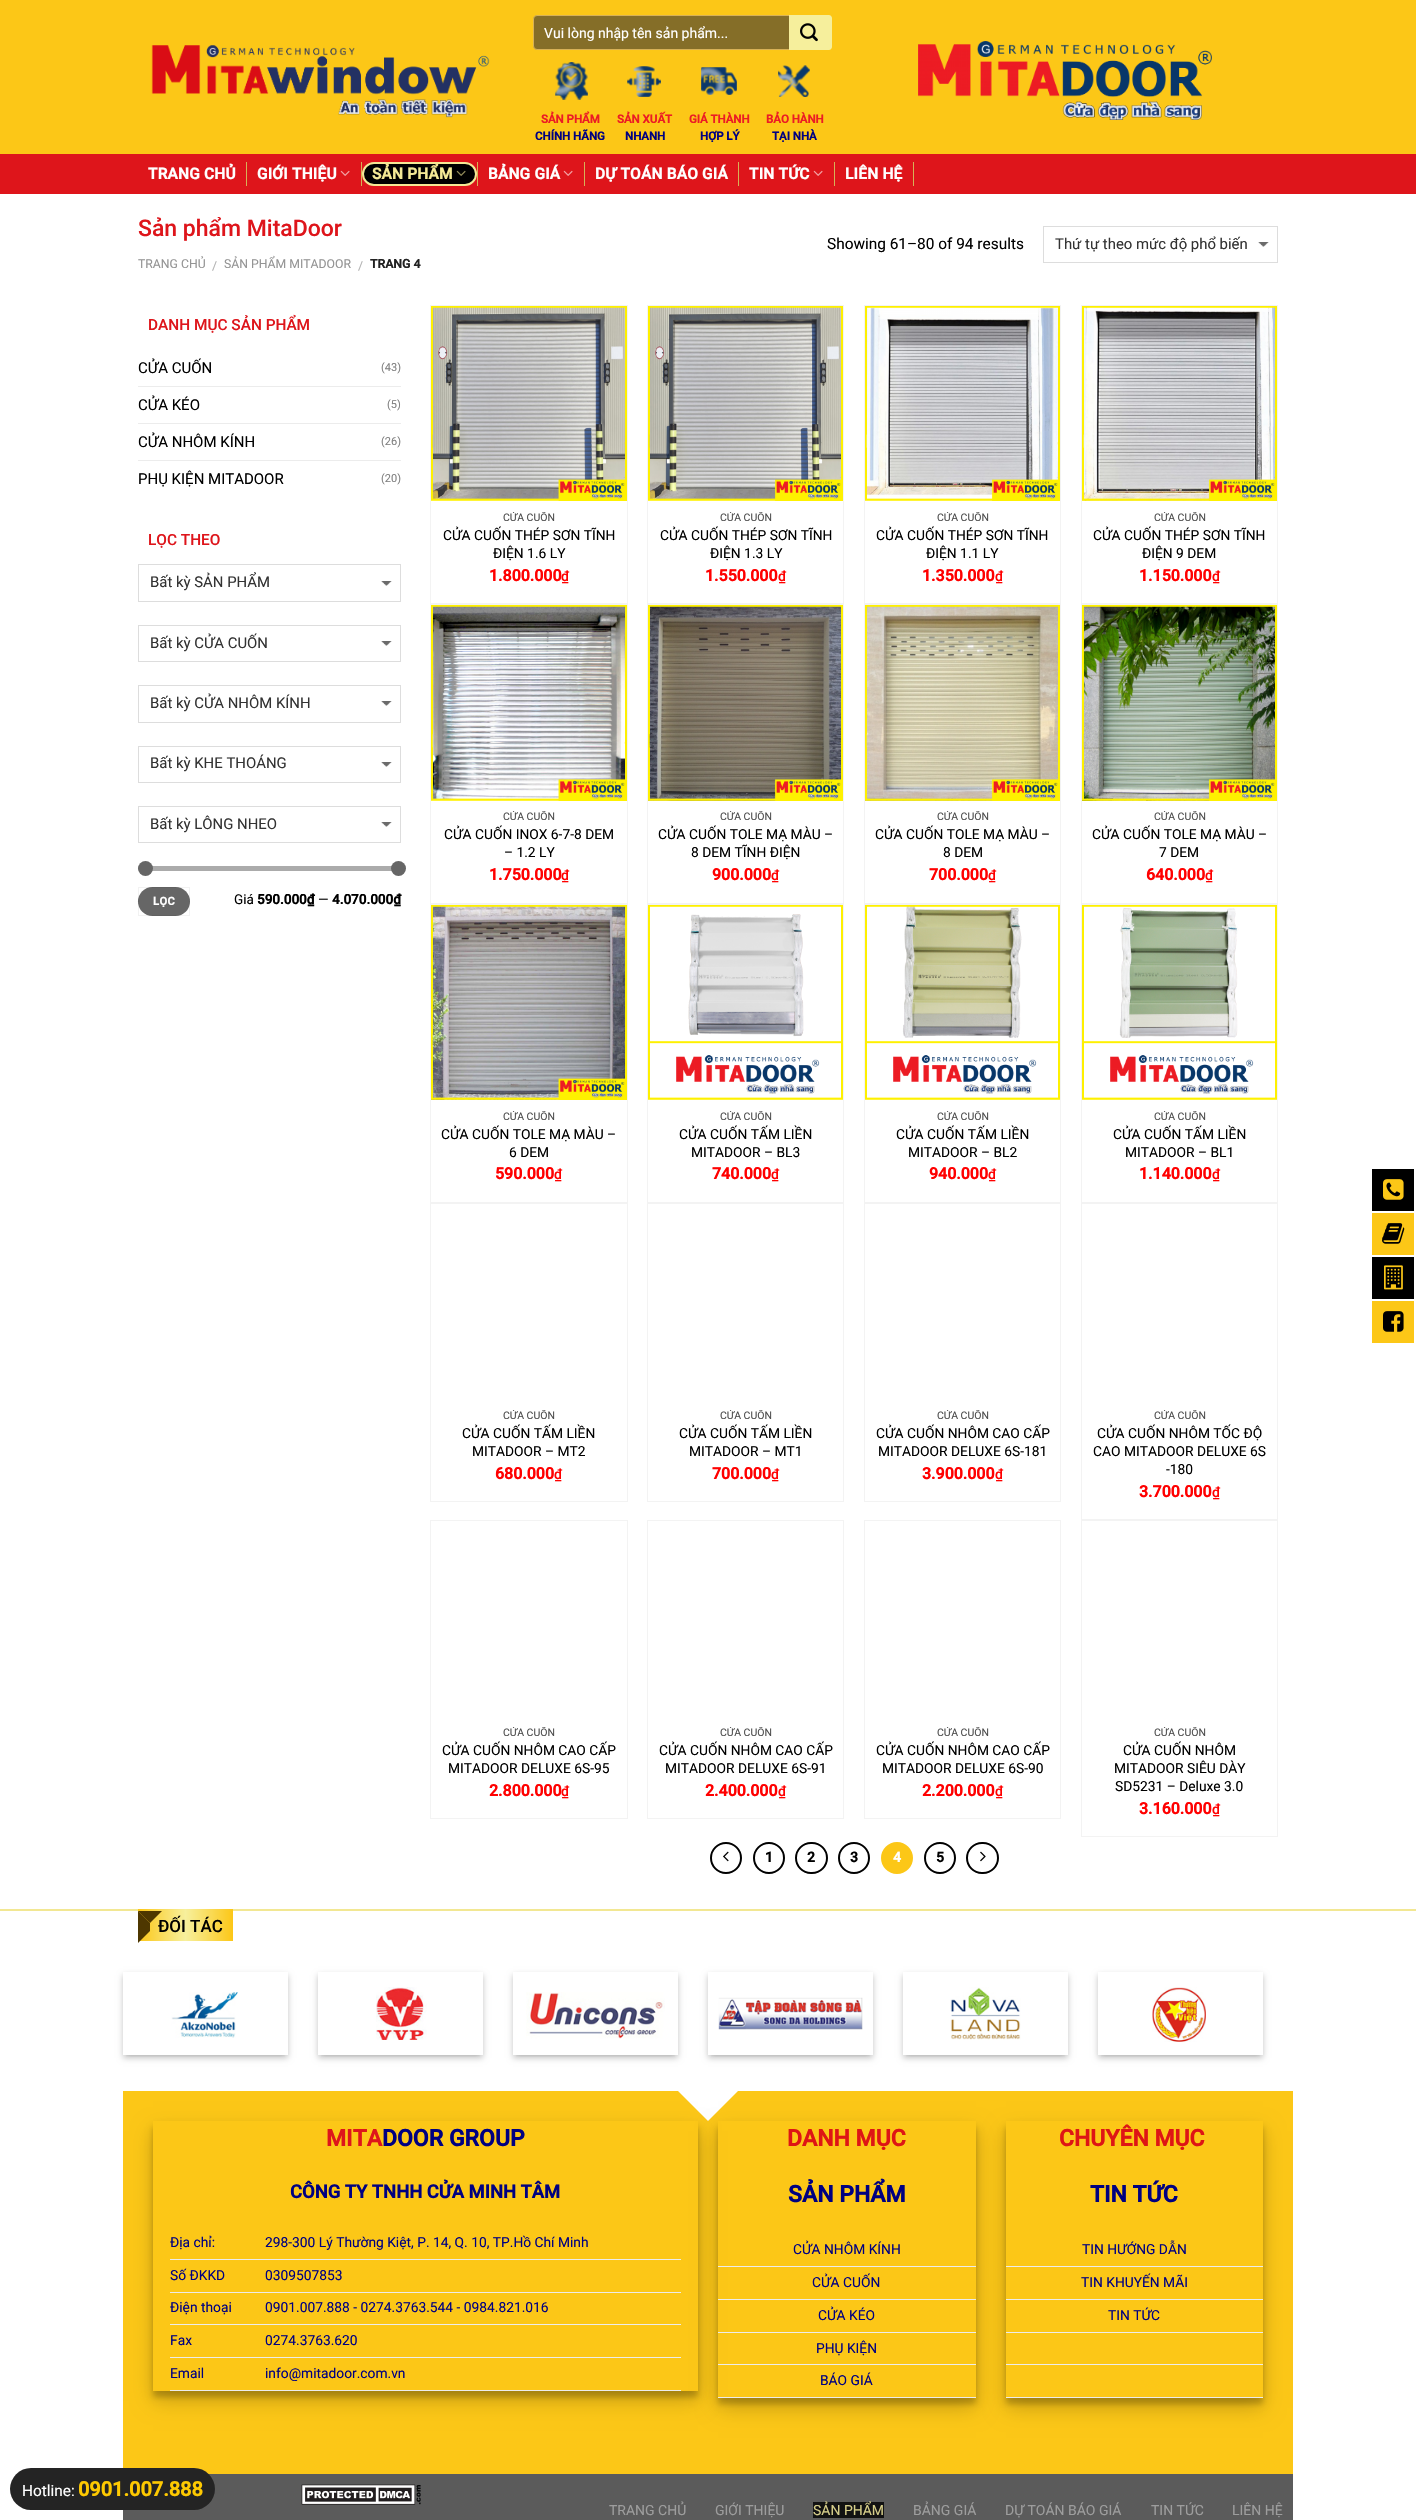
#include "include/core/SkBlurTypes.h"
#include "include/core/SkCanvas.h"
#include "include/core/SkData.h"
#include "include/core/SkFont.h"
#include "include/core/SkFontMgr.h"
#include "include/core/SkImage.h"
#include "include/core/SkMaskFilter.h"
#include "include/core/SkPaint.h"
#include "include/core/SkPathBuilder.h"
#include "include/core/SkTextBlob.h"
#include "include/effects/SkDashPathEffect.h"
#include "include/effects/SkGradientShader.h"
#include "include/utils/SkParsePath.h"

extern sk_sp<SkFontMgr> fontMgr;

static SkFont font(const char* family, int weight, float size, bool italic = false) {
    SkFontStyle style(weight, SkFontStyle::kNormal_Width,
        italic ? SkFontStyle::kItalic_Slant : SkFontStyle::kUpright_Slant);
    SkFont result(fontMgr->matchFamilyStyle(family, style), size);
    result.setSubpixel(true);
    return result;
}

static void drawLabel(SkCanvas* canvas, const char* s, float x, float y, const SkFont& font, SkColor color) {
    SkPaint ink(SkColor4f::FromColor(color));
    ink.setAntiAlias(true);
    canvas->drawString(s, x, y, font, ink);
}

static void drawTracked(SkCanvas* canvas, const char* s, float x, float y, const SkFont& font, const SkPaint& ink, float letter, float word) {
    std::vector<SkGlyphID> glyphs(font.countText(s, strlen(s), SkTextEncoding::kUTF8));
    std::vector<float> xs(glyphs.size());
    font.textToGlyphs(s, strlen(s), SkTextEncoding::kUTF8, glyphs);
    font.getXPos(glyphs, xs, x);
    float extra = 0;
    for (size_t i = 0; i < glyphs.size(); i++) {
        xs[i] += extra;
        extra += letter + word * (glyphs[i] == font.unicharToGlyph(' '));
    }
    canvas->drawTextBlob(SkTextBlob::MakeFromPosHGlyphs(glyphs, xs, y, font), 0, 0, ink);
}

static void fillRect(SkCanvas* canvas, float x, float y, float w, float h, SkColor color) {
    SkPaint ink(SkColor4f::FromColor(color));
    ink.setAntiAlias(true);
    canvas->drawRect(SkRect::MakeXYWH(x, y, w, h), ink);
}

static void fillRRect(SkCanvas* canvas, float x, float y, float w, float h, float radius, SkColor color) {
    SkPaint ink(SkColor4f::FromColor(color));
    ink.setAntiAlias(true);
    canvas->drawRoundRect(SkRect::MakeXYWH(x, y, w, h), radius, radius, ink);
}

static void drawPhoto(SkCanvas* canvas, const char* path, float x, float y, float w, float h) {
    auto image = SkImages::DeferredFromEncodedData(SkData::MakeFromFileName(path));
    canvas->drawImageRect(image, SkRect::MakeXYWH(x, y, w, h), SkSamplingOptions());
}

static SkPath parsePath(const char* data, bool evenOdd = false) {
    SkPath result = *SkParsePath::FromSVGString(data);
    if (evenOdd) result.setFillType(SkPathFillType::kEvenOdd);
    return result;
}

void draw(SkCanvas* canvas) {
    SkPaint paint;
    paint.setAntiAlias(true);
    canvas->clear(0xFFFFFFFF);
    fillRect(canvas, 0, 0, 1416, 154, 0xFFFCC717);
    drawPhoto(canvas, "assets/img1.png", 151, 45, 339, 73);
    paint.setColor(0xFF856E28);
    canvas->drawRoundRect(SkRect::MakeXYWH(533.5f, 15.5f, 295, 34), 3.5f, 3.5f, paint);
    paint.setStroke(true);
    paint.setStrokeWidth(1);
    paint.setColor(0xFFD7B157);
    canvas->drawRoundRect(SkRect::MakeXYWH(533.5f, 15.5f, 295, 34), 3.5f, 3.5f, paint);
    SkFont font1 = font("Roboto", 400, 14);
    drawLabel(canvas, "Vui lòng nhập tên sản phẩm...", 544, 38, font1, 0xFFFFFFFF);
    paint.setStroke(false);
    paint.setColor(0xFFF6EF9C);
    canvas->drawPath(parsePath("M789 15H829C830.5 15 832 16.5 832 18V47C832 48.5 830.5 50 829 50H789Z"), paint);
    drawPhoto(canvas, "assets/img2.png", 800, 23, 18, 19);
    drawPhoto(canvas, "assets/img3.png", 555, 62, 33, 38);
    SkFont font2 = font("Roboto", 700, 11.5f);
    drawLabel(canvas, "SẢN PHẨM", 541, 123, font2, 0xFFEC1C24);
    drawLabel(canvas, "CHÍNH HÃNG", 535, 140, font2, 0xFF000080);
    drawPhoto(canvas, "assets/img4.png", 627, 66, 34, 31);
    drawLabel(canvas, "SẢN XUẤT", 617, 123, font2, 0xFFEC1C24);
    drawLabel(canvas, "NHANH", 625, 140, font2, 0xFF000080);
    drawPhoto(canvas, "assets/img5.png", 701, 67, 36, 28);
    drawLabel(canvas, "GIÁ THÀNH", 689, 123, font2, 0xFFEC1C24);
    drawLabel(canvas, "HỢP LÝ", 700, 140, font2, 0xFF000080);
    drawPhoto(canvas, "assets/img6.png", 778, 65, 32, 32);
    drawLabel(canvas, "BẢO HÀNH", 766, 123, font2, 0xFFEC1C24);
    drawLabel(canvas, "TẠI NHÀ", 772, 140, font2, 0xFF000080);
    drawPhoto(canvas, "assets/img7.png", 918, 41, 294, 79);
    fillRect(canvas, 0, 154, 1416, 40, 0xFFDE151B);
    fillRect(canvas, 246, 162, 1, 24, 0xFFD6B257);
    SkFont font3 = font("Roboto", 700, 15.4f);
    paint.setColor(0xFFFFFFFF);
    drawTracked(canvas, "TRANG CHỦ", 148, 179, font3, paint, 0.25f, 0);
    fillRect(canvas, 361, 162, 1, 24, 0xFFD6B257);
    drawTracked(canvas, "GIỚI THIỆU", 257, 179, font3, paint, 0.25f, 0);
    drawPhoto(canvas, "assets/img8.png", 340, 170, 10, 6);
    fillRect(canvas, 477, 162, 1, 24, 0xFFD6B257);
    paint.setColor(0xFF000000);
    canvas->drawRoundRect(SkRect::MakeXYWH(363, 163, 113, 22), 11, 11, paint);
    paint.setStroke(true);
    paint.setStrokeWidth(2);
    paint.setColor(0xFFF4E995);
    canvas->drawRoundRect(SkRect::MakeXYWH(363, 163, 113, 22), 11, 11, paint);
    paint.setStroke(false);
    drawTracked(canvas, "SẢN PHẨM", 372, 179, font3, paint, 0.25f, 0);
    drawPhoto(canvas, "assets/img9.png", 456, 170, 10, 6);
    fillRect(canvas, 584, 162, 1, 24, 0xFFD6B257);
    paint.setColor(0xFFFFFFFF);
    drawTracked(canvas, "BẢNG GIÁ", 488, 179, font3, paint, 0.25f, 0);
    drawPhoto(canvas, "assets/img8.png", 563, 170, 10, 6);
    fillRect(canvas, 738, 162, 1, 24, 0xFFD6B257);
    drawTracked(canvas, "DỰ TOÁN BÁO GIÁ", 595, 179, font3, paint, 0.25f, 0);
    fillRect(canvas, 834, 162, 1, 24, 0xFFD6B257);
    drawTracked(canvas, "TIN TỨC", 749, 179, font3, paint, 0.25f, 0);
    drawPhoto(canvas, "assets/img8.png", 813, 170, 10, 6);
    fillRect(canvas, 913, 162, 1, 24, 0xFFD6B257);
    drawTracked(canvas, "LIÊN HỆ", 845, 179, font3, paint, 0.25f, 0);
    SkFont font4 = font("Roboto", 500, 23);
    drawLabel(canvas, "Sản phẩm MitaDoor", 138, 236, font4, 0xFFDE151B);
    SkFont font5 = font("Roboto", 400, 12.25f);
    drawLabel(canvas, "TRANG CHỦ", 138, 268, font5, 0xFF949494);
    drawLabel(canvas, "/", 212, 270, font5, 0xFFB2B2B2);
    drawLabel(canvas, "SẢN PHẨM MITADOOR", 224, 268, font5, 0xFF949494);
    drawLabel(canvas, "/", 358, 270, font5, 0xFFB2B2B2);
    SkFont font6 = font("Roboto", 700, 12.25f);
    drawLabel(canvas, "TRANG 4", 370, 268, font6, 0xFF222222);
    SkFont font7 = font("Roboto", 400, 15.4f);
    drawLabel(canvas, "Showing 61–80 of 94 results", 827, 249, font7, 0xFF000000);
    drawPhoto(canvas, "assets/img10.png", 1258, 242, 11, 5);
    paint.setStroke(true);
    paint.setStrokeWidth(1);
    paint.setColor(0xFFDDDDDD);
    canvas->drawRect(SkRect::MakeXYWH(1043.5f, 226.5f, 234, 36), paint);
    SkFont font8 = font("Roboto", 400, 14.9f);
    drawLabel(canvas, "Thứ tự theo mức độ phổ biến", 1055, 249, font8, 0xFF333333);
    SkFont font9 = font("Roboto", 500, 15.4f);
    drawLabel(canvas, "DANH MỤC SẢN PHẨM", 148, 330, font9, 0xFFDE151B);
    SkFont font10 = font("Roboto", 400, 15);
    drawLabel(canvas, "CỬA CUỐN", 138, 373, font10, 0xFF000000);
    SkFont font11 = font("Roboto", 400, 11);
    drawLabel(canvas, "(43)", 381, 371, font11, 0xFF808080);
    fillRect(canvas, 138, 386, 263, 1, 0xFFECECEC);
    drawLabel(canvas, "CỬA KÉO", 138, 410, font10, 0xFF000000);
    drawLabel(canvas, "(5)", 387, 408, font11, 0xFF808080);
    fillRect(canvas, 138, 423, 263, 1, 0xFFECECEC);
    drawLabel(canvas, "CỬA NHÔM KÍNH", 138, 447, font10, 0xFF000000);
    drawLabel(canvas, "(26)", 381, 445, font11, 0xFF808080);
    fillRect(canvas, 138, 460, 263, 1, 0xFFECECEC);
    drawLabel(canvas, "PHỤ KIỆN MITADOOR", 138, 484, font10, 0xFF000000);
    drawLabel(canvas, "(20)", 381, 482, font11, 0xFF808080);
    drawLabel(canvas, "LỌC THEO", 148, 545, font9, 0xFFDE151B);
    drawPhoto(canvas, "assets/img10.png", 381, 581, 11, 5);
    canvas->drawRect(SkRect::MakeXYWH(138.5f, 564.5f, 262, 37), paint);
    drawLabel(canvas, "Bất kỳ SẢN PHẨM", 150, 587, font8, 0xFF333333);
    drawPhoto(canvas, "assets/img10.png", 381, 641, 11, 5);
    canvas->drawRect(SkRect::MakeXYWH(138.5f, 625.5f, 262, 36), paint);
    drawLabel(canvas, "Bất kỳ CỬA CUỐN", 150, 648, font8, 0xFF333333);
    drawPhoto(canvas, "assets/img10.png", 381, 701, 11, 5);
    canvas->drawRect(SkRect::MakeXYWH(138.5f, 685.5f, 262, 37), paint);
    drawLabel(canvas, "Bất kỳ CỬA NHÔM KÍNH", 150, 708, font8, 0xFF333333);
    drawPhoto(canvas, "assets/img10.png", 381, 762, 11, 5);
    canvas->drawRect(SkRect::MakeXYWH(138.5f, 746.5f, 262, 36), paint);
    drawLabel(canvas, "Bất kỳ KHE THOÁNG", 150, 768, font8, 0xFF333333);
    drawPhoto(canvas, "assets/img10.png", 381, 822, 11, 5);
    canvas->drawRect(SkRect::MakeXYWH(138.5f, 806.5f, 262, 36), paint);
    drawLabel(canvas, "Bất kỳ LÔNG NHEO", 150, 829, font8, 0xFF333333);
    fillRRect(canvas, 138, 866, 263, 5, 2.5f, 0xFFF1F1F1);
    fillRRect(canvas, 138, 866, 263, 5, 2.5f, 0x80666666);
    paint.setStroke(false);
    paint.setColor(0xFF666666);
    canvas->drawCircle(145.5f, 868.5f, 7.5f, paint);
    canvas->drawCircle(398.5f, 868.5f, 7.5f, paint);
    fillRRect(canvas, 138, 887, 52, 29, 14.5f, 0xFF666666);
    paint.setStroke(true);
    paint.setColor(0x0D000000);
    canvas->drawRect(SkRect::MakeXYWH(138.5f, 887.5f, 51, 28), paint);
    SkFont font12 = font("Roboto", 700, 11);
    paint.setStroke(false);
    paint.setColor(0xFFFFFFFF);
    drawTracked(canvas, "LỌC", 153, 905, font12, paint, 0.5f, 0);
    SkFont font13 = font("Roboto", 400, 13.5f);
    drawLabel(canvas, "Giá", 234, 904, font13, 0xFF000000);
    SkFont font14 = font("Roboto", 700, 13.5f);
    drawLabel(canvas, "590.000₫", 257, 904, font14, 0xFF000000);
    drawLabel(canvas, "—", 318, 904, font13, 0xFF000000);
    drawLabel(canvas, "4.070.000₫", 332, 904, font14, 0xFF000000);
    paint.setStroke(true);
    paint.setColor(0xFFF3F3F3);
    canvas->drawRect(SkRect::MakeXYWH(430.5f, 305.5f, 197, 298), paint);
    drawPhoto(canvas, "assets/img11.png", 431, 306, 196, 195);
    canvas->save();
    canvas->clipRect(SkRect::MakeXYWH(441, 512, 176, 13));
    SkFont font15 = font("Roboto", 400, 10.5f);
    drawLabel(canvas, "CỬA CUỐN", 503, 521, font15, 0xFF4D4D4D);
    canvas->restore();
    SkFont font16 = font("Roboto", 400, 13.8f);
    drawLabel(canvas, "CỬA CUỐN THÉP SƠN TĨNH", 443, 540, font16, 0xFF000000);
    drawLabel(canvas, "ĐIỆN 1.6 LY", 493, 558, font16, 0xFF000000);
    SkFont font17 = font("Roboto", 700, 16);
    drawLabel(canvas, "1.800.000", 489, 581, font17, 0xFFFF0000);
    SkFont font18 = font("Roboto", 500, 14);
    drawLabel(canvas, "₫", 561, 581, font18, 0xFFFF0000);
    canvas->drawRect(SkRect::MakeXYWH(647.5f, 305.5f, 196, 298), paint);
    drawPhoto(canvas, "assets/img12.png", 648, 306, 195, 195);
    canvas->save();
    canvas->clipRect(SkRect::MakeXYWH(658, 512, 175, 13));
    drawLabel(canvas, "CỬA CUỐN", 720, 521, font15, 0xFF4D4D4D);
    canvas->restore();
    drawLabel(canvas, "CỬA CUỐN THÉP SƠN TĨNH", 660, 540, font16, 0xFF000000);
    drawLabel(canvas, "ĐIỆN 1.3 LY", 710, 558, font16, 0xFF000000);
    drawLabel(canvas, "1.550.000", 705, 581, font17, 0xFFFF0000);
    drawLabel(canvas, "₫", 778, 581, font18, 0xFFFF0000);
    canvas->drawRect(SkRect::MakeXYWH(864.5f, 305.5f, 196, 298), paint);
    drawPhoto(canvas, "assets/img13.png", 865, 306, 195, 195);
    canvas->save();
    canvas->clipRect(SkRect::MakeXYWH(875, 512, 175, 13));
    drawLabel(canvas, "CỬA CUỐN", 937, 521, font15, 0xFF4D4D4D);
    canvas->restore();
    drawLabel(canvas, "CỬA CUỐN THÉP SƠN TĨNH", 876, 540, font16, 0xFF000000);
    drawLabel(canvas, "ĐIỆN 1.1 LY", 926, 558, font16, 0xFF000000);
    drawLabel(canvas, "1.350.000", 922, 581, font17, 0xFFFF0000);
    drawLabel(canvas, "₫", 995, 581, font18, 0xFFFF0000);
    canvas->drawRect(SkRect::MakeXYWH(1081.5f, 305.5f, 196, 298), paint);
    drawPhoto(canvas, "assets/img14.png", 1082, 306, 195, 195);
    canvas->save();
    canvas->clipRect(SkRect::MakeXYWH(1092, 512, 175, 13));
    drawLabel(canvas, "CỬA CUỐN", 1154, 521, font15, 0xFF4D4D4D);
    canvas->restore();
    drawLabel(canvas, "CỬA CUỐN THÉP SƠN TĨNH", 1093, 540, font16, 0xFF000000);
    drawLabel(canvas, "ĐIỆN 9 DEM", 1142, 558, font16, 0xFF000000);
    drawLabel(canvas, "1.150.000", 1139, 581, font17, 0xFFFF0000);
    drawLabel(canvas, "₫", 1212, 581, font18, 0xFFFF0000);
    canvas->drawRect(SkRect::MakeXYWH(430.5f, 604.5f, 197, 299), paint);
    drawPhoto(canvas, "assets/img15.png", 431, 605, 196, 196);
    canvas->save();
    canvas->clipRect(SkRect::MakeXYWH(441, 811, 176, 13));
    drawLabel(canvas, "CỬA CUỐN", 503, 820, font15, 0xFF4D4D4D);
    canvas->restore();
    drawLabel(canvas, "CỬA CUỐN INOX 6-7-8 DEM", 444, 839, font16, 0xFF000000);
    drawLabel(canvas, "– 1.2 LY", 504, 857, font16, 0xFF000000);
    drawLabel(canvas, "1.750.000", 489, 880, font17, 0xFFFF0000);
    drawLabel(canvas, "₫", 561, 880, font18, 0xFFFF0000);
    canvas->drawRect(SkRect::MakeXYWH(647.5f, 604.5f, 196, 299), paint);
    drawPhoto(canvas, "assets/img16.png", 648, 605, 195, 196);
    canvas->save();
    canvas->clipRect(SkRect::MakeXYWH(658, 811, 175, 13));
    drawLabel(canvas, "CỬA CUỐN", 720, 820, font15, 0xFF4D4D4D);
    canvas->restore();
    drawLabel(canvas, "CỬA CUỐN TOLE MẠ MÀU –", 658, 839, font16, 0xFF000000);
    drawLabel(canvas, "8 DEM TĨNH ĐIỆN", 691, 857, font16, 0xFF000000);
    drawLabel(canvas, "900.000", 712, 880, font17, 0xFFFF0000);
    drawLabel(canvas, "₫", 771, 880, font18, 0xFFFF0000);
    canvas->drawRect(SkRect::MakeXYWH(864.5f, 604.5f, 196, 299), paint);
    drawPhoto(canvas, "assets/img17.png", 865, 605, 195, 196);
    canvas->save();
    canvas->clipRect(SkRect::MakeXYWH(875, 811, 175, 13));
    drawLabel(canvas, "CỬA CUỐN", 937, 820, font15, 0xFF4D4D4D);
    canvas->restore();
    drawLabel(canvas, "CỬA CUỐN TOLE MẠ MÀU –", 875, 839, font16, 0xFF000000);
    drawLabel(canvas, "8 DEM", 943, 857, font16, 0xFF000000);
    drawLabel(canvas, "700.000", 929, 880, font17, 0xFFFF0000);
    drawLabel(canvas, "₫", 988, 880, font18, 0xFFFF0000);
    canvas->drawRect(SkRect::MakeXYWH(1081.5f, 604.5f, 196, 299), paint);
    drawPhoto(canvas, "assets/img18.png", 1082, 605, 195, 196);
    canvas->save();
    canvas->clipRect(SkRect::MakeXYWH(1092, 811, 175, 13));
    drawLabel(canvas, "CỬA CUỐN", 1154, 820, font15, 0xFF4D4D4D);
    canvas->restore();
    drawLabel(canvas, "CỬA CUỐN TOLE MẠ MÀU –", 1092, 839, font16, 0xFF000000);
    drawLabel(canvas, "7 DEM", 1159, 857, font16, 0xFF000000);
    drawLabel(canvas, "640.000", 1146, 880, font17, 0xFFFF0000);
    drawLabel(canvas, "₫", 1205, 880, font18, 0xFFFF0000);
    canvas->drawRect(SkRect::MakeXYWH(430.5f, 904.5f, 197, 298), paint);
    drawPhoto(canvas, "assets/img19.png", 431, 905, 196, 195);
    canvas->save();
    canvas->clipRect(SkRect::MakeXYWH(441, 1111, 176, 12));
    drawLabel(canvas, "CỬA CUỐN", 503, 1120, font15, 0xFF4D4D4D);
    canvas->restore();
    drawLabel(canvas, "CỬA CUỐN TOLE MẠ MÀU –", 441, 1139, font16, 0xFF000000);
    drawLabel(canvas, "6 DEM", 509, 1157, font16, 0xFF000000);
    drawLabel(canvas, "590.000", 495, 1179, font17, 0xFFFF0000);
    drawLabel(canvas, "₫", 554, 1179, font18, 0xFFFF0000);
    canvas->drawRect(SkRect::MakeXYWH(647.5f, 904.5f, 196, 298), paint);
    drawPhoto(canvas, "assets/img20.png", 648, 905, 195, 195);
    canvas->save();
    canvas->clipRect(SkRect::MakeXYWH(658, 1111, 175, 12));
    drawLabel(canvas, "CỬA CUỐN", 720, 1120, font15, 0xFF4D4D4D);
    canvas->restore();
    drawLabel(canvas, "CỬA CUỐN TẤM LIỀN", 679, 1139, font16, 0xFF000000);
    drawLabel(canvas, "MITADOOR – BL3", 691, 1157, font16, 0xFF000000);
    drawLabel(canvas, "740.000", 712, 1179, font17, 0xFFFF0000);
    drawLabel(canvas, "₫", 771, 1179, font18, 0xFFFF0000);
    canvas->drawRect(SkRect::MakeXYWH(864.5f, 904.5f, 196, 298), paint);
    drawPhoto(canvas, "assets/img21.png", 865, 905, 195, 195);
    canvas->save();
    canvas->clipRect(SkRect::MakeXYWH(875, 1111, 175, 12));
    drawLabel(canvas, "CỬA CUỐN", 937, 1120, font15, 0xFF4D4D4D);
    canvas->restore();
    drawLabel(canvas, "CỬA CUỐN TẤM LIỀN", 896, 1139, font16, 0xFF000000);
    drawLabel(canvas, "MITADOOR – BL2", 908, 1157, font16, 0xFF000000);
    drawLabel(canvas, "940.000", 929, 1179, font17, 0xFFFF0000);
    drawLabel(canvas, "₫", 988, 1179, font18, 0xFFFF0000);
    canvas->drawRect(SkRect::MakeXYWH(1081.5f, 904.5f, 196, 298), paint);
    drawPhoto(canvas, "assets/img22.png", 1082, 905, 195, 195);
    canvas->save();
    canvas->clipRect(SkRect::MakeXYWH(1092, 1111, 175, 12));
    drawLabel(canvas, "CỬA CUỐN", 1154, 1120, font15, 0xFF4D4D4D);
    canvas->restore();
    drawLabel(canvas, "CỬA CUỐN TẤM LIỀN", 1113, 1139, font16, 0xFF000000);
    drawLabel(canvas, "MITADOOR – BL1", 1125, 1157, font16, 0xFF000000);
    drawLabel(canvas, "1.140.000", 1139, 1179, font17, 0xFFFF0000);
    drawLabel(canvas, "₫", 1212, 1179, font18, 0xFFFF0000);
    canvas->drawRect(SkRect::MakeXYWH(430.5f, 1203.5f, 197, 298), paint);
    canvas->save();
    canvas->clipRect(SkRect::MakeXYWH(441, 1410, 176, 12));
    drawLabel(canvas, "CỬA CUỐN", 503, 1419, font15, 0xFF4D4D4D);
    canvas->restore();
    drawLabel(canvas, "CỬA CUỐN TẤM LIỀN", 462, 1438, font16, 0xFF000000);
    drawLabel(canvas, "MITADOOR – MT2", 472, 1456, font16, 0xFF000000);
    drawLabel(canvas, "680.000", 495, 1479, font17, 0xFFFF0000);
    drawLabel(canvas, "₫", 554, 1479, font18, 0xFFFF0000);
    canvas->drawRect(SkRect::MakeXYWH(647.5f, 1203.5f, 196, 298), paint);
    canvas->save();
    canvas->clipRect(SkRect::MakeXYWH(658, 1410, 175, 12));
    drawLabel(canvas, "CỬA CUỐN", 720, 1419, font15, 0xFF4D4D4D);
    canvas->restore();
    drawLabel(canvas, "CỬA CUỐN TẤM LIỀN", 679, 1438, font16, 0xFF000000);
    drawLabel(canvas, "MITADOOR – MT1", 689, 1456, font16, 0xFF000000);
    drawLabel(canvas, "700.000", 712, 1479, font17, 0xFFFF0000);
    drawLabel(canvas, "₫", 771, 1479, font18, 0xFFFF0000);
    canvas->drawRect(SkRect::MakeXYWH(864.5f, 1203.5f, 196, 298), paint);
    canvas->save();
    canvas->clipRect(SkRect::MakeXYWH(875, 1410, 175, 12));
    drawLabel(canvas, "CỬA CUỐN", 937, 1419, font15, 0xFF4D4D4D);
    canvas->restore();
    drawLabel(canvas, "CỬA CUỐN NHÔM CAO CẤP", 876, 1438, font16, 0xFF000000);
    drawLabel(canvas, "MITADOOR DELUXE 6S-181", 878, 1456, font16, 0xFF000000);
    drawLabel(canvas, "3.900.000", 922, 1479, font17, 0xFFFF0000);
    drawLabel(canvas, "₫", 995, 1479, font18, 0xFFFF0000);
    canvas->drawRect(SkRect::MakeXYWH(1081.5f, 1203.5f, 196, 316), paint);
    canvas->save();
    canvas->clipRect(SkRect::MakeXYWH(1092, 1410, 175, 12));
    drawLabel(canvas, "CỬA CUỐN", 1154, 1419, font15, 0xFF4D4D4D);
    canvas->restore();
    drawLabel(canvas, "CỬA CUỐN NHÔM TỐC ĐỘ", 1097, 1438, font16, 0xFF000000);
    drawLabel(canvas, "CAO MITADOOR DELUXE 6S", 1093, 1456, font16, 0xFF000000);
    drawLabel(canvas, "-180", 1166, 1474, font16, 0xFF000000);
    drawLabel(canvas, "3.700.000", 1139, 1497, font17, 0xFFFF0000);
    drawLabel(canvas, "₫", 1212, 1497, font18, 0xFFFF0000);
    canvas->drawRect(SkRect::MakeXYWH(430.5f, 1520.5f, 197, 298), paint);
    canvas->save();
    canvas->clipRect(SkRect::MakeXYWH(441, 1727, 176, 12));
    drawLabel(canvas, "CỬA CUỐN", 503, 1736, font15, 0xFF4D4D4D);
    canvas->restore();
    drawLabel(canvas, "CỬA CUỐN NHÔM CAO CẤP", 442, 1755, font16, 0xFF000000);
    drawLabel(canvas, "MITADOOR DELUXE 6S-95", 448, 1773, font16, 0xFF000000);
    drawLabel(canvas, "2.800.000", 489, 1796, font17, 0xFFFF0000);
    drawLabel(canvas, "₫", 561, 1796, font18, 0xFFFF0000);
    canvas->drawRect(SkRect::MakeXYWH(647.5f, 1520.5f, 196, 298), paint);
    canvas->save();
    canvas->clipRect(SkRect::MakeXYWH(658, 1727, 175, 12));
    drawLabel(canvas, "CỬA CUỐN", 720, 1736, font15, 0xFF4D4D4D);
    canvas->restore();
    drawLabel(canvas, "CỬA CUỐN NHÔM CAO CẤP", 659, 1755, font16, 0xFF000000);
    drawLabel(canvas, "MITADOOR DELUXE 6S-91", 665, 1773, font16, 0xFF000000);
    drawLabel(canvas, "2.400.000", 705, 1796, font17, 0xFFFF0000);
    drawLabel(canvas, "₫", 778, 1796, font18, 0xFFFF0000);
    canvas->drawRect(SkRect::MakeXYWH(864.5f, 1520.5f, 196, 298), paint);
    canvas->save();
    canvas->clipRect(SkRect::MakeXYWH(875, 1727, 175, 12));
    drawLabel(canvas, "CỬA CUỐN", 937, 1736, font15, 0xFF4D4D4D);
    canvas->restore();
    drawLabel(canvas, "CỬA CUỐN NHÔM CAO CẤP", 876, 1755, font16, 0xFF000000);
    drawLabel(canvas, "MITADOOR DELUXE 6S-90", 882, 1773, font16, 0xFF000000);
    drawLabel(canvas, "2.200.000", 922, 1796, font17, 0xFFFF0000);
    drawLabel(canvas, "₫", 995, 1796, font18, 0xFFFF0000);
    canvas->drawRect(SkRect::MakeXYWH(1081.5f, 1520.5f, 196, 316), paint);
    canvas->save();
    canvas->clipRect(SkRect::MakeXYWH(1092, 1727, 175, 12));
    drawLabel(canvas, "CỬA CUỐN", 1154, 1736, font15, 0xFF4D4D4D);
    canvas->restore();
    drawLabel(canvas, "CỬA CUỐN NHÔM", 1123, 1755, font16, 0xFF000000);
    drawLabel(canvas, "MITADOOR SIÊU DÀY", 1114, 1773, font16, 0xFF000000);
    drawLabel(canvas, "SD5231 – Deluxe 3.0", 1115, 1791, font16, 0xFF000000);
    drawLabel(canvas, "3.160.000", 1139, 1814, font17, 0xFFFF0000);
    drawLabel(canvas, "₫", 1212, 1814, font18, 0xFFFF0000);
    paint.setStrokeWidth(2);
    paint.setColor(0xFF000000);
    canvas->drawCircle(726, 1858, 15, paint);
    drawPhoto(canvas, "assets/img23.png", 723, 1851, 6, 11);
    canvas->drawCircle(769, 1858, 15, paint);
    SkFont font19 = font("Roboto", 700, 14);
    drawLabel(canvas, "1", 765, 1862, font19, 0xFF000000);
    canvas->drawRoundRect(SkRect::MakeXYWH(796, 1843, 31, 30), 15, 15, paint);
    drawLabel(canvas, "2", 807, 1862, font19, 0xFF000000);
    canvas->drawCircle(854, 1858, 15, paint);
    drawLabel(canvas, "3", 850, 1862, font19, 0xFF000000);
    paint.setStroke(false);
    paint.setColor(0xFFFCC717);
    canvas->drawCircle(897, 1858, 15, paint);
    paint.setStroke(true);
    canvas->drawCircle(897, 1858, 15, paint);
    drawLabel(canvas, "4", 893, 1862, font19, 0xFFFFFFFF);
    paint.setColor(0xFF000000);
    canvas->drawCircle(940, 1858, 15, paint);
    drawLabel(canvas, "5", 936, 1862, font19, 0xFF000000);
    canvas->drawRoundRect(SkRect::MakeXYWH(967, 1843, 31, 30), 15, 15, paint);
    drawPhoto(canvas, "assets/img24.png", 980, 1851, 6, 11);
    fillRect(canvas, 0, 1909, 1416, 2, 0xFFF2E792);
    paint.setStroke(false);
    {
        const SkColor colors[] = {0xFFFCC717, 0xFFF7F09D, 0xFFFCC717};
        const float stops[] = {0, 0.5f, 1};
        const SkPoint ends[] = {{138, 1925}, {233, 1925}};
        paint.setShader(SkGradientShader::MakeLinear(ends, colors, stops, 3, SkTileMode::kClamp));
        paint.setAlpha(255);
    }
    canvas->drawRect(SkRect::MakeXYWH(138, 1909, 95, 32), paint);
    SkFont font20 = font("Roboto", 500, 17);
    drawLabel(canvas, "ĐỐI TÁC", 158, 1932, font20, 0xFF000000);
    paint.setShader(nullptr);
    paint.setColor(0xFF4E3700);
    canvas->drawPath(parsePath("M138 1911H162L150 1923Z"), paint);
    canvas->drawPath(parsePath("M138 1943V1911L150 1923V1931Z"), paint);
    canvas->save();
    canvas->clipPath(parsePath("M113 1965H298V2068H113ZM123 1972H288V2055H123Z", true), true);
    paint.setColor(0x3B000000);
    paint.setMaskFilter(SkMaskFilter::MakeBlur(kNormal_SkBlurStyle, 3));
    canvas->drawRect(SkRect::MakeXYWH(123, 1975, 165, 83), paint);
    paint.setMaskFilter(nullptr);
    canvas->restore();
    canvas->save();
    canvas->clipRect(SkRect::MakeXYWH(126, 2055, 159, 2));
    paint.setColor(0x29000000);
    paint.setMaskFilter(SkMaskFilter::MakeBlur(kNormal_SkBlurStyle, 3));
    canvas->drawRect(SkRect::MakeXYWH(127, 1979, 157, 75), paint);
    paint.setMaskFilter(nullptr);
    canvas->restore();
    drawPhoto(canvas, "assets/img25.png", 171, 1992, 67, 46);
    canvas->save();
    canvas->clipPath(parsePath("M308 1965H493V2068H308ZM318 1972H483V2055H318Z", true), true);
    paint.setColor(0x3B000000);
    paint.setMaskFilter(SkMaskFilter::MakeBlur(kNormal_SkBlurStyle, 3));
    canvas->drawRect(SkRect::MakeXYWH(318, 1975, 165, 83), paint);
    paint.setMaskFilter(nullptr);
    canvas->restore();
    canvas->save();
    canvas->clipRect(SkRect::MakeXYWH(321, 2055, 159, 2));
    paint.setColor(0x29000000);
    paint.setMaskFilter(SkMaskFilter::MakeBlur(kNormal_SkBlurStyle, 3));
    canvas->drawRect(SkRect::MakeXYWH(322, 1979, 157, 75), paint);
    paint.setMaskFilter(nullptr);
    canvas->restore();
    drawPhoto(canvas, "assets/img26.png", 376, 1987, 51, 53);
    canvas->save();
    canvas->clipPath(parsePath("M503 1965H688V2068H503ZM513 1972H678V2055H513Z", true), true);
    paint.setColor(0x3B000000);
    paint.setMaskFilter(SkMaskFilter::MakeBlur(kNormal_SkBlurStyle, 3));
    canvas->drawRect(SkRect::MakeXYWH(513, 1975, 165, 83), paint);
    paint.setMaskFilter(nullptr);
    canvas->restore();
    canvas->save();
    canvas->clipRect(SkRect::MakeXYWH(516, 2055, 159, 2));
    paint.setColor(0x29000000);
    paint.setMaskFilter(SkMaskFilter::MakeBlur(kNormal_SkBlurStyle, 3));
    canvas->drawRect(SkRect::MakeXYWH(517, 1979, 157, 75), paint);
    paint.setMaskFilter(nullptr);
    canvas->restore();
    drawPhoto(canvas, "assets/img27.png", 526, 1992, 139, 47);
    canvas->save();
    canvas->clipPath(parsePath("M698 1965H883V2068H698ZM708 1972H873V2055H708Z", true), true);
    paint.setColor(0x3B000000);
    paint.setMaskFilter(SkMaskFilter::MakeBlur(kNormal_SkBlurStyle, 3));
    canvas->drawRect(SkRect::MakeXYWH(708, 1975, 165, 83), paint);
    paint.setMaskFilter(nullptr);
    canvas->restore();
    canvas->save();
    canvas->clipRect(SkRect::MakeXYWH(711, 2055, 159, 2));
    paint.setColor(0x29000000);
    paint.setMaskFilter(SkMaskFilter::MakeBlur(kNormal_SkBlurStyle, 3));
    canvas->drawRect(SkRect::MakeXYWH(712, 1979, 157, 75), paint);
    paint.setMaskFilter(nullptr);
    canvas->restore();
    drawPhoto(canvas, "assets/img28.png", 718, 1997, 145, 33);
    canvas->save();
    canvas->clipPath(parsePath("M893 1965H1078V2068H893ZM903 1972H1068V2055H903Z", true), true);
    paint.setColor(0x3B000000);
    paint.setMaskFilter(SkMaskFilter::MakeBlur(kNormal_SkBlurStyle, 3));
    canvas->drawRect(SkRect::MakeXYWH(903, 1975, 165, 83), paint);
    paint.setMaskFilter(nullptr);
    canvas->restore();
    canvas->save();
    canvas->clipRect(SkRect::MakeXYWH(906, 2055, 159, 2));
    paint.setColor(0x29000000);
    paint.setMaskFilter(SkMaskFilter::MakeBlur(kNormal_SkBlurStyle, 3));
    canvas->drawRect(SkRect::MakeXYWH(907, 1979, 157, 75), paint);
    paint.setMaskFilter(nullptr);
    canvas->restore();
    drawPhoto(canvas, "assets/img29.png", 950, 1987, 71, 53);
    canvas->save();
    canvas->clipPath(parsePath("M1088 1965H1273V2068H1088ZM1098 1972H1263V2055H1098Z", true), true);
    paint.setColor(0x3B000000);
    paint.setMaskFilter(SkMaskFilter::MakeBlur(kNormal_SkBlurStyle, 3));
    canvas->drawRect(SkRect::MakeXYWH(1098, 1975, 165, 83), paint);
    paint.setMaskFilter(nullptr);
    canvas->restore();
    canvas->save();
    canvas->clipRect(SkRect::MakeXYWH(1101, 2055, 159, 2));
    paint.setColor(0x29000000);
    paint.setMaskFilter(SkMaskFilter::MakeBlur(kNormal_SkBlurStyle, 3));
    canvas->drawRect(SkRect::MakeXYWH(1102, 1979, 157, 75), paint);
    paint.setMaskFilter(nullptr);
    canvas->restore();
    drawPhoto(canvas, "assets/img30.png", 1152, 1987, 54, 55);
    paint.setColor(0xFFFCC717);
    canvas->drawPath(parsePath("M123 2091V2474H1293V2091H738L708 2121L678 2091Z"), paint);
    canvas->save();
    canvas->clipPath(parsePath("M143 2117H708V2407H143ZM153 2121H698V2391H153Z", true), true);
    paint.setColor(0x38000000);
    paint.setMaskFilter(SkMaskFilter::MakeBlur(kNormal_SkBlurStyle, 3));
    canvas->drawRect(SkRect::MakeXYWH(153, 2127, 545, 270), paint);
    paint.setMaskFilter(nullptr);
    canvas->restore();
    canvas->save();
    canvas->clipPath(parsePath("M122 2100H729V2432H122ZM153 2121H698V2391H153Z", true), true);
    paint.setColor(0x30000000);
    paint.setMaskFilter(SkMaskFilter::MakeBlur(kNormal_SkBlurStyle, 10));
    canvas->drawRect(SkRect::MakeXYWH(153, 2131, 545, 270), paint);
    paint.setMaskFilter(nullptr);
    canvas->restore();
    SkFont font21 = font("Roboto", 700, 23);
    drawLabel(canvas, "MITA", 326, 2146, font21, 0xFFDE151B);
    drawLabel(canvas, "DOOR GROUP", 382, 2146, font21, 0xFF000080);
    SkFont font22 = font("Roboto", 700, 18.4f);
    drawLabel(canvas, "CÔNG TY TNHH CỬA MINH TÂM", 290, 2198, font22, 0xFF000080);
    fillRect(canvas, 170, 2259, 511, 1, 0xFFECECEC);
    drawLabel(canvas, "Địa chỉ:", 170, 2247, font16, 0xFF000080);
    drawLabel(canvas, "298-300 Lý Thường Kiệt, P. 14, Q. 10, TP.Hồ Chí Minh", 265, 2247, font16, 0xFF000080);
    fillRect(canvas, 170, 2292, 511, 1, 0xFFECECEC);
    drawLabel(canvas, "Số ĐKKD", 170, 2280, font16, 0xFF000080);
    drawLabel(canvas, "0309507853", 265, 2280, font16, 0xFF000080);
    fillRect(canvas, 170, 2324, 511, 1, 0xFFECECEC);
    drawLabel(canvas, "Điện thoại", 170, 2312, font16, 0xFF000080);
    drawLabel(canvas, "0901.007.888 - 0274.3763.544 - 0984.821.016", 265, 2312, font16, 0xFF000080);
    fillRect(canvas, 170, 2357, 511, 1, 0xFFECECEC);
    drawLabel(canvas, "Fax", 170, 2345, font16, 0xFF000080);
    drawLabel(canvas, "0274.3763.620", 265, 2345, font16, 0xFF000080);
    fillRect(canvas, 170, 2390, 511, 1, 0xFFECECEC);
    drawLabel(canvas, "Email", 170, 2378, font16, 0xFF000080);
    drawLabel(canvas, "info@mitadoor.com.vn", 265, 2378, font16, 0xFF000080);
    canvas->save();
    canvas->clipPath(parsePath("M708 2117H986V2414H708ZM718 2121H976V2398H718Z", true), true);
    paint.setColor(0x38000000);
    paint.setMaskFilter(SkMaskFilter::MakeBlur(kNormal_SkBlurStyle, 3));
    canvas->drawRect(SkRect::MakeXYWH(718, 2127, 258, 277), paint);
    paint.setMaskFilter(nullptr);
    canvas->restore();
    canvas->save();
    canvas->clipPath(parsePath("M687 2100H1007V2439H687ZM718 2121H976V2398H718Z", true), true);
    paint.setColor(0x30000000);
    paint.setMaskFilter(SkMaskFilter::MakeBlur(kNormal_SkBlurStyle, 10));
    canvas->drawRect(SkRect::MakeXYWH(718, 2131, 258, 277), paint);
    paint.setMaskFilter(nullptr);
    canvas->restore();
    drawLabel(canvas, "DANH MỤC", 787, 2146, font21, 0xFFDE1515);
    drawLabel(canvas, "SẢN PHẨM", 788, 2202, font21, 0xFF000080);
    fillRect(canvas, 718, 2266, 258, 1, 0xFFECECEC);
    drawLabel(canvas, "CỬA NHÔM KÍNH", 793, 2254, font16, 0xFF000080);
    fillRect(canvas, 718, 2299, 258, 1, 0xFFECECEC);
    drawLabel(canvas, "CỬA CUỐN", 812, 2287, font16, 0xFF000080);
    fillRect(canvas, 718, 2332, 258, 1, 0xFFECECEC);
    drawLabel(canvas, "CỬA KÉO", 818, 2320, font16, 0xFF000080);
    fillRect(canvas, 718, 2364, 258, 1, 0xFFECECEC);
    drawLabel(canvas, "PHỤ KIỆN", 816, 2353, font16, 0xFF000080);
    fillRect(canvas, 718, 2397, 258, 1, 0xFFECECEC);
    drawLabel(canvas, "BÁO GIÁ", 820, 2385, font16, 0xFF000080);
    canvas->save();
    canvas->clipPath(parsePath("M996 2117H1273V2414H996ZM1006 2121H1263V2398H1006Z", true), true);
    paint.setColor(0x38000000);
    paint.setMaskFilter(SkMaskFilter::MakeBlur(kNormal_SkBlurStyle, 3));
    canvas->drawRect(SkRect::MakeXYWH(1006, 2127, 257, 277), paint);
    paint.setMaskFilter(nullptr);
    canvas->restore();
    canvas->save();
    canvas->clipPath(parsePath("M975 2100H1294V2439H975ZM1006 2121H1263V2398H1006Z", true), true);
    paint.setColor(0x30000000);
    paint.setMaskFilter(SkMaskFilter::MakeBlur(kNormal_SkBlurStyle, 10));
    canvas->drawRect(SkRect::MakeXYWH(1006, 2131, 257, 277), paint);
    paint.setMaskFilter(nullptr);
    canvas->restore();
    drawLabel(canvas, "CHUYÊN MỤC", 1059, 2146, font21, 0xFFDE1515);
    drawLabel(canvas, "TIN TỨC", 1090, 2202, font21, 0xFF000080);
    fillRect(canvas, 1006, 2266, 257, 1, 0xFFECECEC);
    drawLabel(canvas, "TIN HƯỚNG DẪN", 1082, 2254, font16, 0xFF000080);
    fillRect(canvas, 1006, 2299, 257, 1, 0xFFECECEC);
    drawLabel(canvas, "TIN KHUYẾN MÃI", 1081, 2287, font16, 0xFF000080);
    fillRect(canvas, 1006, 2332, 257, 1, 0xFFECECEC);
    drawLabel(canvas, "TIN TỨC", 1108, 2320, font16, 0xFF000080);
    fillRect(canvas, 1006, 2364, 257, 1, 0xFFECECEC);
    fillRect(canvas, 1006, 2397, 257, 1, 0xFFECECEC);
    fillRect(canvas, 123, 2474, 1170, 46, 0xFF5B5B5B);
    drawPhoto(canvas, "assets/img31.png", 301, 2484, 120, 21);
    drawLabel(canvas, "TRANG CHỦ", 609, 2515, font1, 0xFF9D9D9D);
    drawLabel(canvas, "GIỚI THIỆU", 715, 2515, font1, 0xFF9D9D9D);
    fillRect(canvas, 813, 2502, 71, 16, 0xFF121212);
    drawLabel(canvas, "SẢN PHẨM", 813, 2515, font1, 0xFFD5CD89);
    drawLabel(canvas, "BẢNG GIÁ", 913, 2515, font1, 0xFF9D9D9D);
    drawLabel(canvas, "DỰ TOÁN BÁO GIÁ", 1005, 2515, font1, 0xFF9D9D9D);
    drawLabel(canvas, "TIN TỨC", 1151, 2515, font1, 0xFF9D9D9D);
    drawLabel(canvas, "LIÊN HỆ", 1232, 2515, font1, 0xFF9D9D9D);
    fillRect(canvas, 1372, 1169, 42, 42, 0xFF000000);
    drawPhoto(canvas, "assets/img32.png", 1383, 1179, 21, 21);
    fillRect(canvas, 1372, 1213, 42, 42, 0xFFFCC717);
    drawPhoto(canvas, "assets/img33.png", 1382, 1223, 23, 21);
    fillRect(canvas, 1372, 1257, 42, 42, 0xFF000000);
    drawPhoto(canvas, "assets/img34.png", 1384, 1265, 19, 25);
    fillRect(canvas, 1372, 1301, 42, 42, 0xFFFCC717);
    drawPhoto(canvas, "assets/img35.png", 1383, 1311, 21, 21);
    fillRRect(canvas, 10, 2468, 205, 42, 21, 0xFF242424);
    drawLabel(canvas, "Hotline:", 22, 2496, font7, 0xFFFFFFFF);
    SkFont font23 = font("Roboto", 700, 20);
    drawLabel(canvas, "0901.007.888", 78, 2496, font23, 0xFFFEC901);
}
